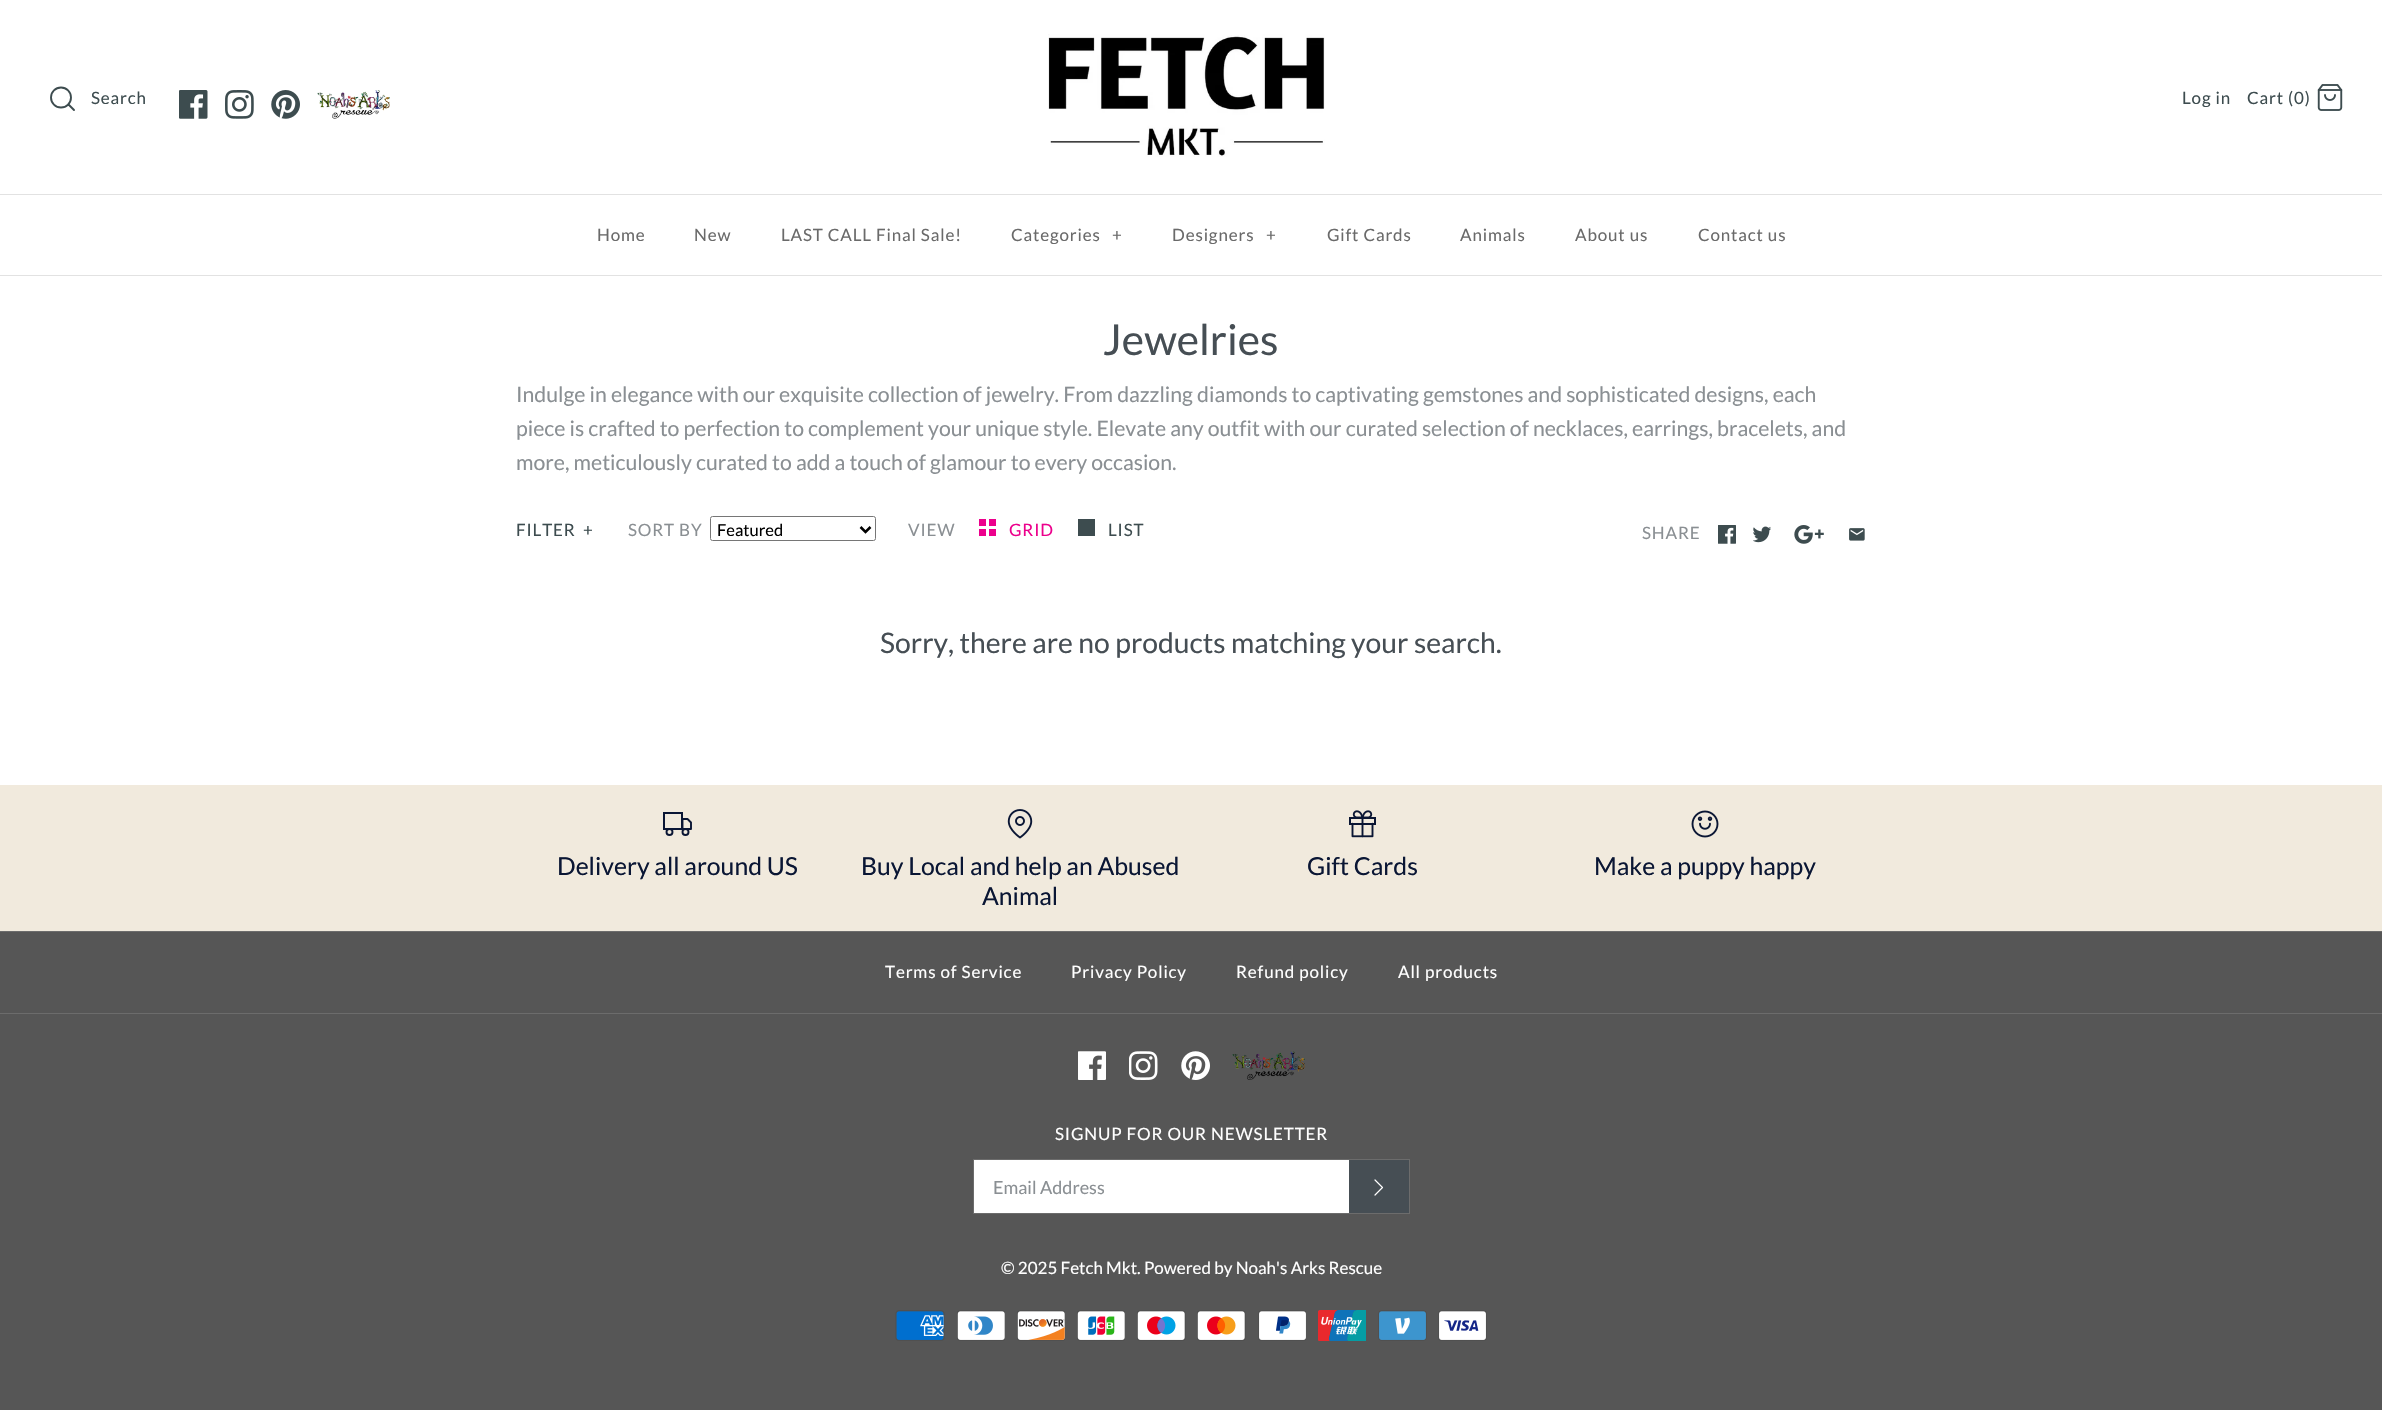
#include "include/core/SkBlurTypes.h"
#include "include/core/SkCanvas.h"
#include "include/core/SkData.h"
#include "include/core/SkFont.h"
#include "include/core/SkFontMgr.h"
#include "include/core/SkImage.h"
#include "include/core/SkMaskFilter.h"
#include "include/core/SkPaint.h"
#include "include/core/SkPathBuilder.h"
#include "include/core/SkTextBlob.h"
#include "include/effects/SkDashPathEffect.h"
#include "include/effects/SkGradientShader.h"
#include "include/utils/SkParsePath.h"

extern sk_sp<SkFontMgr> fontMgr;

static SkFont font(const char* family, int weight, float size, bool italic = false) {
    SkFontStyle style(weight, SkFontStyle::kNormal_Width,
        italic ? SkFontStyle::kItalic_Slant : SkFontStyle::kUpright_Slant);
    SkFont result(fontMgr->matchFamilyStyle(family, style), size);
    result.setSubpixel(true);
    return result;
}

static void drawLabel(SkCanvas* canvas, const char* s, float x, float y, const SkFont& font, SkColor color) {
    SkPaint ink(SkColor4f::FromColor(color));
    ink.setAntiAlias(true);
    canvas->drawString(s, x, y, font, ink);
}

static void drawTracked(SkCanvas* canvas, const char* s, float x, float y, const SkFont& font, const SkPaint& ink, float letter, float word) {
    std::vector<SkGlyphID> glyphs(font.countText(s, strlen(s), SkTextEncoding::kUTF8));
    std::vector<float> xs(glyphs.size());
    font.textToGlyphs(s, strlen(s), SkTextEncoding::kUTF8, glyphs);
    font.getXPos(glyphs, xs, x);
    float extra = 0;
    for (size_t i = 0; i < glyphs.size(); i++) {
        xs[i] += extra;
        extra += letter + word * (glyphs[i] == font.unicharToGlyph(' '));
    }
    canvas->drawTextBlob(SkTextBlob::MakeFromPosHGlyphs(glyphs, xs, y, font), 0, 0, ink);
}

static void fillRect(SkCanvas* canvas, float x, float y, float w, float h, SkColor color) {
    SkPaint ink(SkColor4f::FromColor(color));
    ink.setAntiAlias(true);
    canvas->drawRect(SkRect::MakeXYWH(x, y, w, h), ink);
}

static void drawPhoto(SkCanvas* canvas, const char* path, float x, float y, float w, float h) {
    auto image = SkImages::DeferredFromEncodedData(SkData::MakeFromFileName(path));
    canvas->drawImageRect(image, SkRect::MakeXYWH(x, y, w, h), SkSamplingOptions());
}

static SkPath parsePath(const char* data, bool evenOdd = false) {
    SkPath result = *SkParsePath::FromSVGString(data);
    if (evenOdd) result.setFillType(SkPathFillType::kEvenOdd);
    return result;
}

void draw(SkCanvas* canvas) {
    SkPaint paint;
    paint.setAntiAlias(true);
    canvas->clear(0xFFFFFFFF);
    drawPhoto(canvas, "assets/img1.png", 1048, 34, 277, 123);
    paint.setStroke(true);
    paint.setStrokeWidth(1.9f);
    paint.setColor(0xFF3D4C4F);
    canvas->drawCircle(61, 97.5f, 10, paint);
    paint.setStrokeCap(SkPaint::kRound_Cap);
    paint.setStrokeJoin(SkPaint::kRound_Join);
    canvas->drawPath(parsePath("M74 110L68.5 104.5"), paint);
    SkFont font1 = font("Lato", 400, 17);
    paint.setStroke(false);
    drawTracked(canvas, "Search", 91, 104, font1, paint, 0.85f, 0);
    drawPhoto(canvas, "assets/img2.png", 179, 90, 29, 29);
    drawPhoto(canvas, "assets/img3.png", 225, 90, 29, 29);
    drawPhoto(canvas, "assets/img4.png", 271, 90, 29, 29);
    drawPhoto(canvas, "assets/img5.png", 317, 90, 73, 29);
    drawTracked(canvas, "Log in", 2182, 104, font1, paint, 0.85f, 0);
    drawTracked(canvas, "Cart (0)", 2247, 104, font1, paint, 0.85f, 0);
    drawPhoto(canvas, "assets/img6.png", 2317, 84, 26, 27);
    fillRect(canvas, 0, 275, 2382, 1, 0xFFE2E2E2);
    fillRect(canvas, 0, 194, 2382, 1, 0xFFE2E2E2);
    paint.setColor(0xFF6A6A6A);
    drawTracked(canvas, "Home", 597, 241, font1, paint, 0.85f, 0);
    drawTracked(canvas, "New", 694, 241, font1, paint, 0.85f, 0);
    drawTracked(canvas, "LAST CALL Final Sale!", 781, 241, font1, paint, 0.85f, 0);
    drawTracked(canvas, "Categories", 1011, 241, font1, paint, 0.85f, 0);
    drawTracked(canvas, "+", 1112, 241, font1, paint, 0.85f, 0);
    drawTracked(canvas, "Designers", 1172, 241, font1, paint, 0.85f, 0);
    drawTracked(canvas, "+", 1266, 241, font1, paint, 0.85f, 0);
    drawTracked(canvas, "Gift Cards", 1327, 241, font1, paint, 0.85f, 0);
    drawTracked(canvas, "Animals", 1460, 241, font1, paint, 0.85f, 0);
    drawTracked(canvas, "About us", 1575, 241, font1, paint, 0.85f, 0);
    drawTracked(canvas, "Contact us", 1698, 241, font1, paint, 0.85f, 0);
    SkFont font2 = font("Lato", 400, 42.5f);
    drawLabel(canvas, "Jewelries", 1103, 355, font2, 0xFF464E54);
    SkFont font3 = font("Lato", 400, 21.25f);
    drawLabel(canvas, "Indulge in elegance with our exquisite collection of jewelry. From dazzling diamonds to captivating gemstones and sophisticated designs, each", 516, 402, font3, 0xFF8A8F93);
    drawLabel(canvas, "piece is crafted to perfection to complement your unique style. Elevate any outfit with our curated selection of necklaces, earrings, bracelets, and", 516, 436, font3, 0xFF8A8F93);
    drawLabel(canvas, "more, meticulously curated to add a touch of glamour to every occasion.", 516, 470, font3, 0xFF8A8F93);
    paint.setColor(0xFF3D4C4F);
    drawTracked(canvas, "FILTER", 516, 536, font1, paint, 0.85f, 0);
    drawTracked(canvas, "+", 583, 536, font1, paint, 0.85f, 0);
    paint.setColor(0xFF8A8F93);
    drawTracked(canvas, "SORT BY", 628, 536, font1, paint, 0.85f, 0);
    paint.setStroke(true);
    paint.setStrokeWidth(1);
    paint.setStrokeCap(SkPaint::kButt_Cap);
    paint.setStrokeJoin(SkPaint::kMiter_Join);
    paint.setColor(0xFF767676);
    canvas->drawRoundRect(SkRect::MakeXYWH(710.5f, 516.5f, 165, 24), 2, 2, paint);
    paint.setStrokeWidth(2.5f);
    paint.setColor(0xFF000000);
    canvas->drawPath(parsePath("M860.5 527L865.5 532L870.5 527"), paint);
    SkFont font4 = font("Lato", 400, 16.5f);
    drawLabel(canvas, "Featured", 717, 536, font4, 0xFF000000);
    paint.setStroke(false);
    paint.setColor(0xFF8A8F93);
    drawTracked(canvas, "VIEW", 908, 536, font1, paint, 0.85f, 0);
    fillRect(canvas, 979, 519, 7, 7, 0xFFEC008C);
    fillRect(canvas, 989, 519, 7, 7, 0xFFEC008C);
    paint.setColor(0xFFEC008C);
    drawTracked(canvas, "GRID", 1009, 536, font1, paint, 0.85f, 0);
    fillRect(canvas, 979, 529, 7, 7, 0xFFEC008C);
    fillRect(canvas, 989, 529, 7, 7, 0xFFEC008C);
    fillRect(canvas, 1078, 519, 17, 17, 0xFF3D4C4F);
    paint.setColor(0xFF3D4C4F);
    drawTracked(canvas, "LIST", 1108, 536, font1, paint, 0.85f, 0);
    paint.setColor(0xFF8A8F93);
    drawTracked(canvas, "SHARE", 1642, 539, font1, paint, 0.85f, 0);
    drawPhoto(canvas, "assets/img7.png", 1718, 525, 18, 19);
    drawPhoto(canvas, "assets/img8.png", 1753, 526, 18, 17);
    drawPhoto(canvas, "assets/img9.png", 1794, 525, 30, 19);
    drawPhoto(canvas, "assets/img10.png", 1849, 528, 16, 13);
    SkFont font5 = font("Lato", 400, 28.3f);
    drawLabel(canvas, "Sorry, there are no products matching your search.", 880, 653, font5, 0xFF464E54);
    fillRect(canvas, 0, 932, 2382, 478, 0xFF565656);
    fillRect(canvas, 0, 785, 2382, 146, 0xFFF1EADD);
    paint.setStroke(true);
    paint.setStrokeWidth(2);
    paint.setColor(0xFF0A1634);
    canvas->drawRect(SkRect::MakeXYWH(664, 813, 18, 16), paint);
    paint.setStrokeWidth(1.9f);
    paint.setStrokeCap(SkPaint::kRound_Cap);
    paint.setStrokeJoin(SkPaint::kRound_Join);
    canvas->drawPath(parsePath("M682.5 819H687.5L691 822.5V829H682.5Z"), paint);
    paint.setStrokeCap(SkPaint::kButt_Cap);
    paint.setStrokeJoin(SkPaint::kMiter_Join);
    canvas->drawCircle(669.5f, 832, 3, paint);
    canvas->drawCircle(685.5f, 832, 3, paint);
    SkFont font6 = font("Lato", 400, 24.75f);
    drawLabel(canvas, "Delivery all around US", 557, 875, font6, 0xFF0A1634);
    drawPhoto(canvas, "assets/img11.png", 1007, 809, 26, 30);
    drawLabel(canvas, "Buy Local and help an Abused", 861, 875, font6, 0xFF0A1634);
    drawLabel(canvas, "Animal", 982, 905, font6, 0xFF0A1634);
    drawPhoto(canvas, "assets/img12.png", 1349, 810, 27, 28);
    drawLabel(canvas, "Gift Cards", 1307, 875, font6, 0xFF0A1634);
    drawPhoto(canvas, "assets/img13.png", 1691, 810, 28, 28);
    drawLabel(canvas, "Make a puppy happy", 1594, 875, font6, 0xFF0A1634);
    fillRect(canvas, 0, 931, 2382, 1, 0xFF6C6C6C);
    fillRect(canvas, 0, 1013, 2382, 1, 0xFF6C6C6C);
    paint.setStroke(false);
    paint.setColor(0xFFFFFFFF);
    drawTracked(canvas, "Terms of Service", 885, 978, font1, paint, 0.85f, 0);
    drawTracked(canvas, "Privacy Policy", 1071, 978, font1, paint, 0.85f, 0);
    drawTracked(canvas, "Refund policy", 1236, 978, font1, paint, 0.85f, 0);
    drawTracked(canvas, "All products", 1398, 978, font1, paint, 0.85f, 0);
    drawPhoto(canvas, "assets/img14.png", 1078, 1051, 28, 29);
    drawPhoto(canvas, "assets/img15.png", 1129, 1051, 29, 29);
    drawPhoto(canvas, "assets/img16.png", 1181, 1051, 29, 29);
    drawPhoto(canvas, "assets/img17.png", 1232, 1051, 73, 29);
    drawTracked(canvas, "SIGNUP FOR OUR NEWSLETTER", 1055, 1140, font1, paint, 0.85f, 0);
    fillRect(canvas, 974, 1160, 375, 53, 0xFFFFFFFF);
    paint.setStroke(true);
    paint.setStrokeWidth(1);
    paint.setColor(0xFF6C6C6C);
    canvas->drawRect(SkRect::MakeXYWH(973.5f, 1159.5f, 436, 54), paint);
    SkFont font7 = font("Lato", 400, 18);
    drawLabel(canvas, "Email Address", 993, 1194, font7, 0xFF8A8F93);
    fillRect(canvas, 1349, 1160, 60, 53, 0xFF464E54);
    paint.setStrokeWidth(1.2f);
    paint.setStrokeCap(SkPaint::kRound_Cap);
    paint.setStrokeJoin(SkPaint::kRound_Join);
    paint.setColor(0xFFFFFFFF);
    canvas->drawPath(parsePath("M1375 1195L1382.5 1187.5L1375 1180"), paint);
    drawLabel(canvas, "© 2025 Fetch Mkt. Powered by Noah's Arks Rescue", 1001, 1274, font1, 0xFFFFFFFF);
    drawPhoto(canvas, "assets/img18.png", 895, 1310, 50, 31);
    drawPhoto(canvas, "assets/img19.png", 957, 1310, 48, 31);
    drawPhoto(canvas, "assets/img20.png", 1017, 1310, 48, 31);
    drawPhoto(canvas, "assets/img21.png", 1077, 1310, 48, 31);
    drawPhoto(canvas, "assets/img22.png", 1137, 1310, 49, 31);
    drawPhoto(canvas, "assets/img23.png", 1197, 1310, 49, 31);
    drawPhoto(canvas, "assets/img24.png", 1258, 1310, 48, 31);
    drawPhoto(canvas, "assets/img25.png", 1318, 1310, 48, 31);
    drawPhoto(canvas, "assets/img26.png", 1378, 1310, 49, 31);
    drawPhoto(canvas, "assets/img27.png", 1438, 1310, 49, 31);
}
